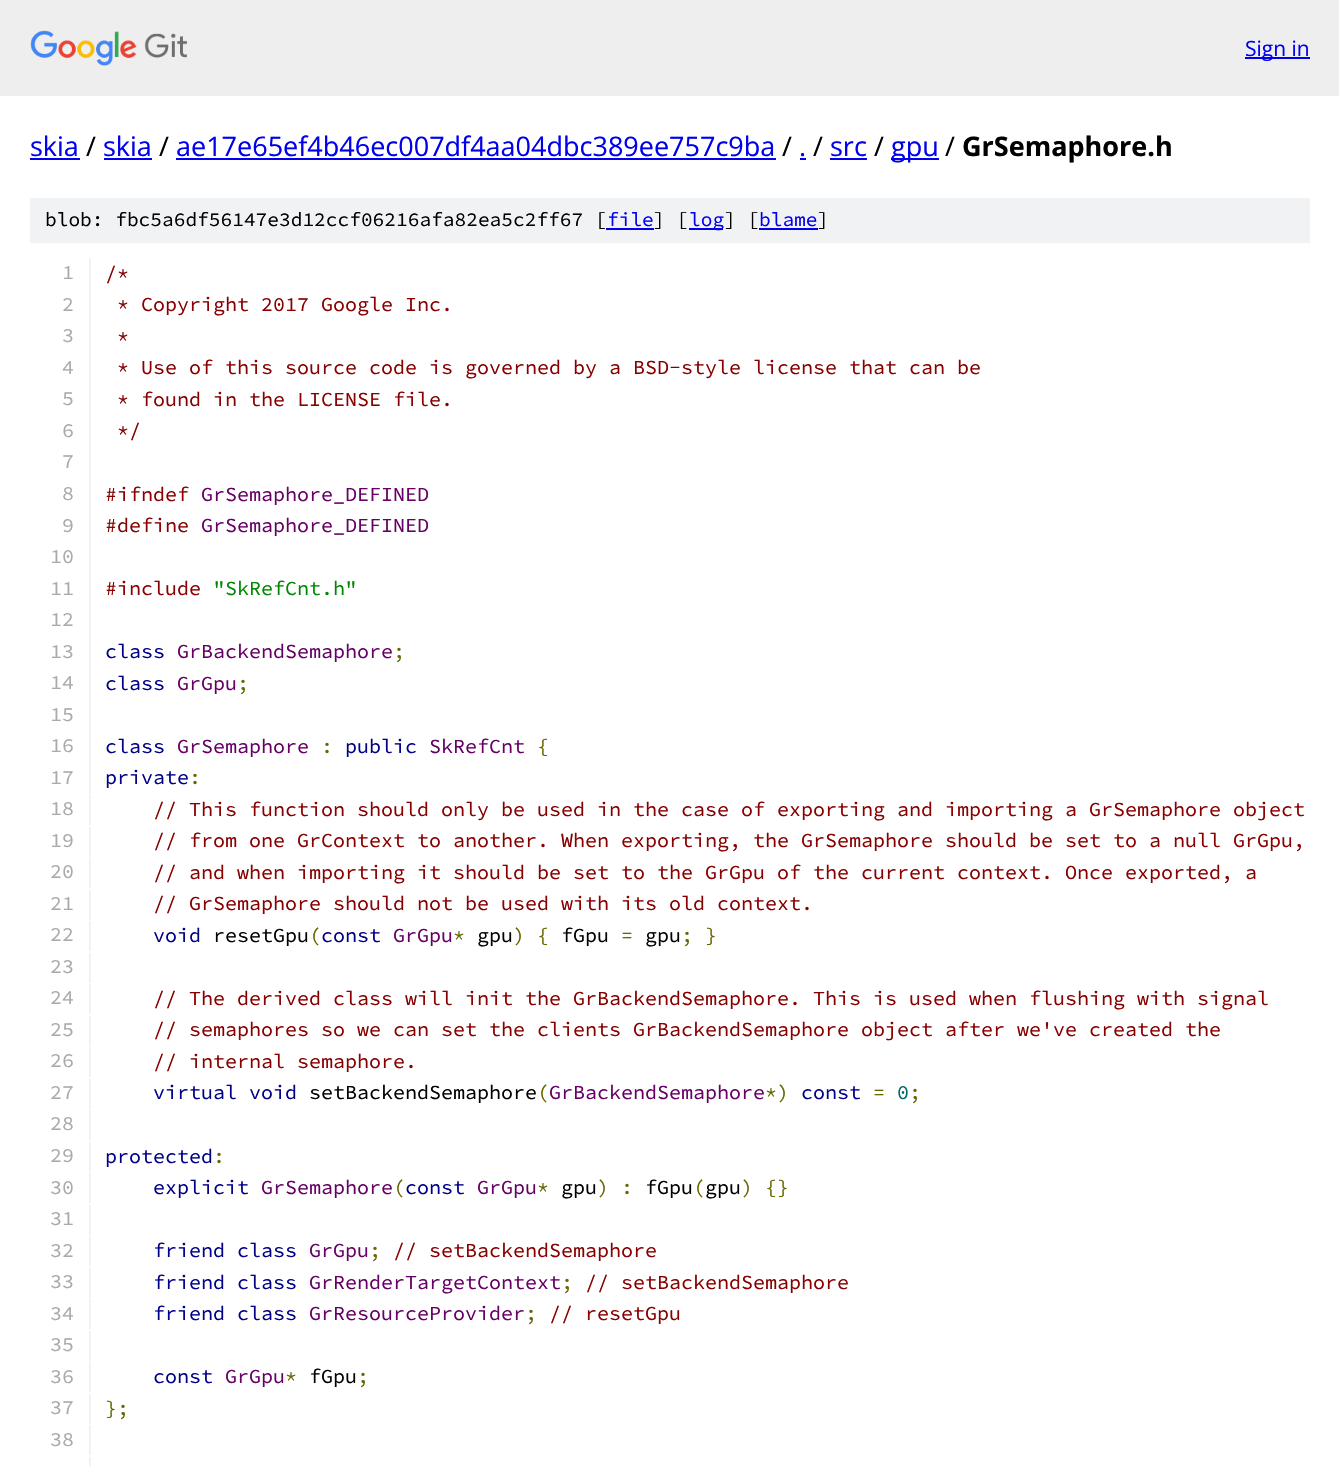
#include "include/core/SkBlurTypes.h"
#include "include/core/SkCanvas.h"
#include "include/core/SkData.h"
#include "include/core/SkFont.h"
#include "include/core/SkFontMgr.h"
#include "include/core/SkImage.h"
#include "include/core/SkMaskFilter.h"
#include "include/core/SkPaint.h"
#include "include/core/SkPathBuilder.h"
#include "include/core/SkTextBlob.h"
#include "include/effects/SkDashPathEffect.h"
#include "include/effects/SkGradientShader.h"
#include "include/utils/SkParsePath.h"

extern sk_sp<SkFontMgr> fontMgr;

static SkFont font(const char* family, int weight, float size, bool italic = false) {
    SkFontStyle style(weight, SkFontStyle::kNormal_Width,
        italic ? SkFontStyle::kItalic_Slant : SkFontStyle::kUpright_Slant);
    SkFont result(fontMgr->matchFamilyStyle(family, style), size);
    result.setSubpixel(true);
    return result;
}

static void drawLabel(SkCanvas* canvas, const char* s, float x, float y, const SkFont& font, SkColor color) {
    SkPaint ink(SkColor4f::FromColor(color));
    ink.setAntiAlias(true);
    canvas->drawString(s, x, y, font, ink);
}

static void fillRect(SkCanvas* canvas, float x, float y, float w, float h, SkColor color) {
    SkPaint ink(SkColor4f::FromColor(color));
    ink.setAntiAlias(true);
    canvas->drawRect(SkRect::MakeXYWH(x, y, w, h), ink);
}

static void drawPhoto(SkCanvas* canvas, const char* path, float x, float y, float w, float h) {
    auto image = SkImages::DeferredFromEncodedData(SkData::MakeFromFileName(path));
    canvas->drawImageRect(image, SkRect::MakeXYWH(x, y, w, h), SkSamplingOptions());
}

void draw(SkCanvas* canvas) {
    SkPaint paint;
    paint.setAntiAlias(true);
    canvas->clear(0xFFFFFFFF);
    fillRect(canvas, 0, 0, 1339, 96, 0xFFEEEEEE);
    drawPhoto(canvas, "assets/img1.png", 30, 30, 157, 36);
    fillRect(canvas, 1245, 57, 65, 2, 0xFF0000EE);
    SkFont font1 = font("Open Sans", 400, 21);
    drawLabel(canvas, "Sign in", 1245, 56, font1, 0xFF0000EE);
    SkFont font2 = font("Open Sans", 400, 27);
    drawLabel(canvas, "skia", 30, 156, font2, 0xFF0000EE);
    fillRect(canvas, 30, 158, 50, 2, 0xFF0000EE);
    drawLabel(canvas, "/", 86, 156, font2, 0xFF000000);
    drawLabel(canvas, "skia", 103, 156, font2, 0xFF0000EE);
    fillRect(canvas, 104, 158, 48, 2, 0xFF0000EE);
    drawLabel(canvas, "/", 159, 156, font2, 0xFF000000);
    drawLabel(canvas, "ae17e65ef4b46ec007df4aa04dbc389ee757c9ba", 176, 156, font2, 0xFF0000EE);
    fillRect(canvas, 176, 158, 600, 2, 0xFF0000EE);
    drawLabel(canvas, "/", 782, 156, font2, 0xFF000000);
    drawLabel(canvas, ".", 799, 156, font2, 0xFF0000EE);
    fillRect(canvas, 800, 158, 6, 2, 0xFF0000EE);
    drawLabel(canvas, "/", 813, 156, font2, 0xFF000000);
    drawLabel(canvas, "src", 830, 156, font2, 0xFF0000EE);
    fillRect(canvas, 830, 158, 37, 2, 0xFF0000EE);
    drawLabel(canvas, "/", 874, 156, font2, 0xFF000000);
    fillRect(canvas, 891, 158, 48, 2, 0xFF0000EE);
    drawLabel(canvas, "gpu", 891, 156, font2, 0xFF0000EE);
    drawLabel(canvas, "/", 945, 156, font2, 0xFF000000);
    SkFont font3 = font("Open Sans", 700, 27);
    drawLabel(canvas, "GrSemaphore.h", 962, 156, font3, 0xFF000000);
    fillRect(canvas, 30, 198, 1280, 45, 0xFFF1F2F3);
    SkFont font4 = font("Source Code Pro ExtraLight", 200, 19.5f);
    drawLabel(canvas, "blob: fbc5a6df56147e3d12ccf06216afa82ea5c2ff67 [", 45, 226, font4, 0xFF000000);
    drawLabel(canvas, "file", 607, 226, font4, 0xFF0000EE);
    fillRect(canvas, 606, 228, 48, 2, 0xFF0000EE);
    drawLabel(canvas, "] [", 653, 226, font4, 0xFF000000);
    fillRect(canvas, 689, 228, 34, 2, 0xFF0000EE);
    drawLabel(canvas, "log", 689, 226, font4, 0xFF0000EE);
    drawLabel(canvas, "] [", 724, 226, font4, 0xFF000000);
    drawLabel(canvas, "blame", 759, 226, font4, 0xFF0000EE);
    fillRect(canvas, 759, 228, 59, 2, 0xFF0000EE);
    drawLabel(canvas, "]", 817, 226, font4, 0xFF000000);
    fillRect(canvas, 89, 258, 2, 536, 0xFFF1F2F3);
    SkFont font5 = font("Source Code Pro ExtraLight", 200, 20);
    drawLabel(canvas, "1", 62, 279, font5, 0xFFAAAAAA);
    drawLabel(canvas, "/*", 105, 280, font5, 0xFF880000);
    drawLabel(canvas, "2", 62, 311, font5, 0xFFAAAAAA);
    drawLabel(canvas, "* Copyright 2017 Google Inc.", 117, 311, font5, 0xFF880000);
    drawLabel(canvas, "3", 62, 342, font5, 0xFFAAAAAA);
    drawLabel(canvas, "*", 117, 343, font5, 0xFF880000);
    drawLabel(canvas, "4", 62, 374, font5, 0xFFAAAAAA);
    drawLabel(canvas, "* Use of this source code is governed by a BSD-style license that can be", 117, 374, font5, 0xFF880000);
    drawLabel(canvas, "5", 62, 405, font5, 0xFFAAAAAA);
    drawLabel(canvas, "* found in the LICENSE file.", 117, 406, font5, 0xFF880000);
    drawLabel(canvas, "6", 62, 437, font5, 0xFFAAAAAA);
    drawLabel(canvas, "*/", 117, 437, font5, 0xFF880000);
    drawLabel(canvas, "7", 62, 468, font5, 0xFFAAAAAA);
    drawLabel(canvas, "8", 62, 500, font5, 0xFFAAAAAA);
    drawLabel(canvas, "#ifndef", 105, 501, font5, 0xFF880000);
    drawLabel(canvas, "GrSemaphore_DEFINED", 201, 501, font5, 0xFF660066);
    drawLabel(canvas, "9", 62, 532, font5, 0xFFAAAAAA);
    drawLabel(canvas, "#define", 105, 532, font5, 0xFF880000);
    drawLabel(canvas, "GrSemaphore_DEFINED", 201, 532, font5, 0xFF660066);
    drawLabel(canvas, "10", 50, 563, font5, 0xFFAAAAAA);
    drawLabel(canvas, "11", 50, 595, font5, 0xFFAAAAAA);
    drawLabel(canvas, "#include", 105, 595, font5, 0xFF880000);
    drawLabel(canvas, "\"SkRefCnt.h\"", 213, 595, font5, 0xFF008800);
    drawLabel(canvas, "12", 50, 626, font5, 0xFFAAAAAA);
    drawLabel(canvas, "13", 50, 658, font5, 0xFFAAAAAA);
    drawLabel(canvas, "class", 105, 658, font5, 0xFF000088);
    drawLabel(canvas, "GrBackendSemaphore", 177, 658, font5, 0xFF660066);
    drawLabel(canvas, ";", 393, 658, font5, 0xFF666600);
    drawLabel(canvas, "14", 50, 689, font5, 0xFFAAAAAA);
    drawLabel(canvas, "class", 105, 690, font5, 0xFF000088);
    drawLabel(canvas, "GrGpu", 177, 690, font5, 0xFF660066);
    drawLabel(canvas, ";", 237, 690, font5, 0xFF666600);
    drawLabel(canvas, "15", 50, 721, font5, 0xFFAAAAAA);
    drawLabel(canvas, "16", 50, 752, font5, 0xFFAAAAAA);
    drawLabel(canvas, "class", 105, 753, font5, 0xFF000088);
    drawLabel(canvas, "GrSemaphore", 177, 753, font5, 0xFF660066);
    drawLabel(canvas, ":", 321, 753, font5, 0xFF666600);
    drawLabel(canvas, "public", 345, 753, font5, 0xFF000088);
    drawLabel(canvas, "SkRefCnt", 429, 753, font5, 0xFF660066);
    drawLabel(canvas, "{", 537, 753, font5, 0xFF666600);
    drawLabel(canvas, "17", 50, 784, font5, 0xFFAAAAAA);
    drawLabel(canvas, "private", 105, 784, font5, 0xFF000088);
    drawLabel(canvas, ":", 189, 784, font5, 0xFF666600);
    fillRect(canvas, 89, 795, 2, 30, 0xFFF1F2F3);
    drawLabel(canvas, "18", 50, 815, font5, 0xFFAAAAAA);
    drawLabel(canvas, "// This function should only be used in the case of exporting and importing a GrSemaphore object", 153, 816, font5, 0xFF880000);
    fillRect(canvas, 89, 827, 2, 30, 0xFFF1F2F3);
    drawLabel(canvas, "19", 50, 847, font5, 0xFFAAAAAA);
    drawLabel(canvas, "// from one GrContext to another. When exporting, the GrSemaphore should be set to a null GrGpu,", 153, 847, font5, 0xFF880000);
    fillRect(canvas, 89, 858, 2, 30, 0xFFF1F2F3);
    drawLabel(canvas, "20", 50, 878, font5, 0xFFAAAAAA);
    drawLabel(canvas, "// and when importing it should be set to the GrGpu of the current context. Once exported, a", 153, 879, font5, 0xFF880000);
    fillRect(canvas, 89, 890, 2, 30, 0xFFF1F2F3);
    drawLabel(canvas, "21", 50, 910, font5, 0xFFAAAAAA);
    drawLabel(canvas, "// GrSemaphore should not be used with its old context.", 153, 910, font5, 0xFF880000);
    fillRect(canvas, 89, 921, 2, 30, 0xFFF1F2F3);
    drawLabel(canvas, "22", 50, 941, font5, 0xFFAAAAAA);
    drawLabel(canvas, "void", 153, 942, font5, 0xFF000088);
    drawLabel(canvas, "resetGpu", 213, 942, font5, 0xFF000000);
    drawLabel(canvas, "(", 309, 942, font5, 0xFF666600);
    drawLabel(canvas, "const", 321, 942, font5, 0xFF000088);
    drawLabel(canvas, "GrGpu", 393, 942, font5, 0xFF660066);
    drawLabel(canvas, "*", 453, 942, font5, 0xFF666600);
    drawLabel(canvas, "gpu", 477, 942, font5, 0xFF000000);
    drawLabel(canvas, ") {", 513, 942, font5, 0xFF666600);
    drawLabel(canvas, "fGpu", 561, 942, font5, 0xFF000000);
    drawLabel(canvas, "=", 621, 942, font5, 0xFF666600);
    drawLabel(canvas, "gpu", 645, 942, font5, 0xFF000000);
    drawLabel(canvas, "; }", 681, 942, font5, 0xFF666600);
    fillRect(canvas, 89, 953, 2, 30, 0xFFF1F2F3);
    drawLabel(canvas, "23", 50, 973, font5, 0xFFAAAAAA);
    fillRect(canvas, 89, 984, 2, 30, 0xFFF1F2F3);
    drawLabel(canvas, "24", 50, 1004, font5, 0xFFAAAAAA);
    drawLabel(canvas, "// The derived class will init the GrBackendSemaphore. This is used when flushing with signal", 153, 1005, font5, 0xFF880000);
    fillRect(canvas, 89, 1016, 2, 30, 0xFFF1F2F3);
    drawLabel(canvas, "25", 50, 1036, font5, 0xFFAAAAAA);
    drawLabel(canvas, "// semaphores so we can set the clients GrBackendSemaphore object after we've created the", 153, 1036, font5, 0xFF880000);
    fillRect(canvas, 89, 1047, 2, 30, 0xFFF1F2F3);
    drawLabel(canvas, "26", 50, 1067, font5, 0xFFAAAAAA);
    drawLabel(canvas, "// internal semaphore.", 153, 1068, font5, 0xFF880000);
    fillRect(canvas, 89, 1079, 2, 30, 0xFFF1F2F3);
    drawLabel(canvas, "27", 50, 1099, font5, 0xFFAAAAAA);
    drawLabel(canvas, "virtual void", 153, 1099, font5, 0xFF000088);
    drawLabel(canvas, "setBackendSemaphore", 309, 1099, font5, 0xFF000000);
    drawLabel(canvas, "(", 537, 1099, font5, 0xFF666600);
    drawLabel(canvas, "GrBackendSemaphore", 549, 1099, font5, 0xFF660066);
    drawLabel(canvas, "*)", 765, 1099, font5, 0xFF666600);
    drawLabel(canvas, "const", 801, 1099, font5, 0xFF000088);
    drawLabel(canvas, "=", 873, 1099, font5, 0xFF666600);
    drawLabel(canvas, "0", 897, 1099, font5, 0xFF006666);
    drawLabel(canvas, ";", 909, 1099, font5, 0xFF666600);
    fillRect(canvas, 89, 1110, 2, 30, 0xFFF1F2F3);
    drawLabel(canvas, "28", 50, 1130, font5, 0xFFAAAAAA);
    fillRect(canvas, 89, 1142, 2, 30, 0xFFF1F2F3);
    drawLabel(canvas, "29", 50, 1162, font5, 0xFFAAAAAA);
    drawLabel(canvas, "protected", 105, 1163, font5, 0xFF000088);
    drawLabel(canvas, ":", 213, 1163, font5, 0xFF666600);
    fillRect(canvas, 89, 1173, 2, 30, 0xFFF1F2F3);
    drawLabel(canvas, "30", 50, 1194, font5, 0xFFAAAAAA);
    drawLabel(canvas, "explicit", 153, 1194, font5, 0xFF000088);
    drawLabel(canvas, "GrSemaphore", 261, 1194, font5, 0xFF660066);
    drawLabel(canvas, "(", 393, 1194, font5, 0xFF666600);
    drawLabel(canvas, ") :", 597, 1194, font5, 0xFF666600);
    drawLabel(canvas, "fGpu gpu", 645, 1194, font5, 0xFF000000);
    drawLabel(canvas, "const", 405, 1194, font5, 0xFF000088);
    drawLabel(canvas, "GrGpu", 477, 1194, font5, 0xFF660066);
    drawLabel(canvas, "*", 537, 1194, font5, 0xFF666600);
    drawLabel(canvas, "gpu", 561, 1194, font5, 0xFF000000);
    drawLabel(canvas, "(", 693, 1194, font5, 0xFF666600);
    drawLabel(canvas, ") {}", 741, 1194, font5, 0xFF666600);
    fillRect(canvas, 89, 1205, 2, 30, 0xFFF1F2F3);
    drawLabel(canvas, "31", 50, 1225, font5, 0xFFAAAAAA);
    fillRect(canvas, 89, 1236, 2, 30, 0xFFF1F2F3);
    drawLabel(canvas, "32", 50, 1257, font5, 0xFFAAAAAA);
    drawLabel(canvas, "friend class", 153, 1257, font5, 0xFF000088);
    drawLabel(canvas, "GrGpu", 309, 1257, font5, 0xFF660066);
    drawLabel(canvas, ";", 369, 1257, font5, 0xFF666600);
    drawLabel(canvas, "// setBackendSemaphore", 393, 1257, font5, 0xFF880000);
    fillRect(canvas, 89, 1268, 2, 30, 0xFFF1F2F3);
    drawLabel(canvas, "33", 50, 1288, font5, 0xFFAAAAAA);
    drawLabel(canvas, "friend class", 153, 1289, font5, 0xFF000088);
    drawLabel(canvas, "GrRenderTargetContext", 309, 1289, font5, 0xFF660066);
    drawLabel(canvas, ";", 561, 1289, font5, 0xFF666600);
    drawLabel(canvas, "// setBackendSemaphore", 585, 1289, font5, 0xFF880000);
    fillRect(canvas, 89, 1299, 2, 30, 0xFFF1F2F3);
    drawLabel(canvas, "34", 50, 1320, font5, 0xFFAAAAAA);
    drawLabel(canvas, "friend class", 153, 1320, font5, 0xFF000088);
    drawLabel(canvas, "GrResourceProvider", 309, 1320, font5, 0xFF660066);
    drawLabel(canvas, ";", 525, 1320, font5, 0xFF666600);
    drawLabel(canvas, "// resetGpu", 549, 1320, font5, 0xFF880000);
    fillRect(canvas, 89, 1331, 2, 30, 0xFFF1F2F3);
    drawLabel(canvas, "35", 50, 1351, font5, 0xFFAAAAAA);
    fillRect(canvas, 89, 1362, 2, 30, 0xFFF1F2F3);
    drawLabel(canvas, "36", 50, 1383, font5, 0xFFAAAAAA);
    drawLabel(canvas, "const", 153, 1383, font5, 0xFF000088);
    drawLabel(canvas, "GrGpu", 225, 1383, font5, 0xFF660066);
    drawLabel(canvas, "*", 285, 1383, font5, 0xFF666600);
    drawLabel(canvas, "fGpu", 309, 1383, font5, 0xFF000000);
    drawLabel(canvas, ";", 357, 1383, font5, 0xFF666600);
    fillRect(canvas, 89, 1394, 2, 30, 0xFFF1F2F3);
    drawLabel(canvas, "37", 50, 1414, font5, 0xFFAAAAAA);
    drawLabel(canvas, "};", 105, 1415, font5, 0xFF666600);
    fillRect(canvas, 89, 1425, 2, 30, 0xFFF1F2F3);
    drawLabel(canvas, "38", 50, 1446, font5, 0xFFAAAAAA);
    fillRect(canvas, 89, 1457, 2, 9, 0xFFF1F2F3);
}
